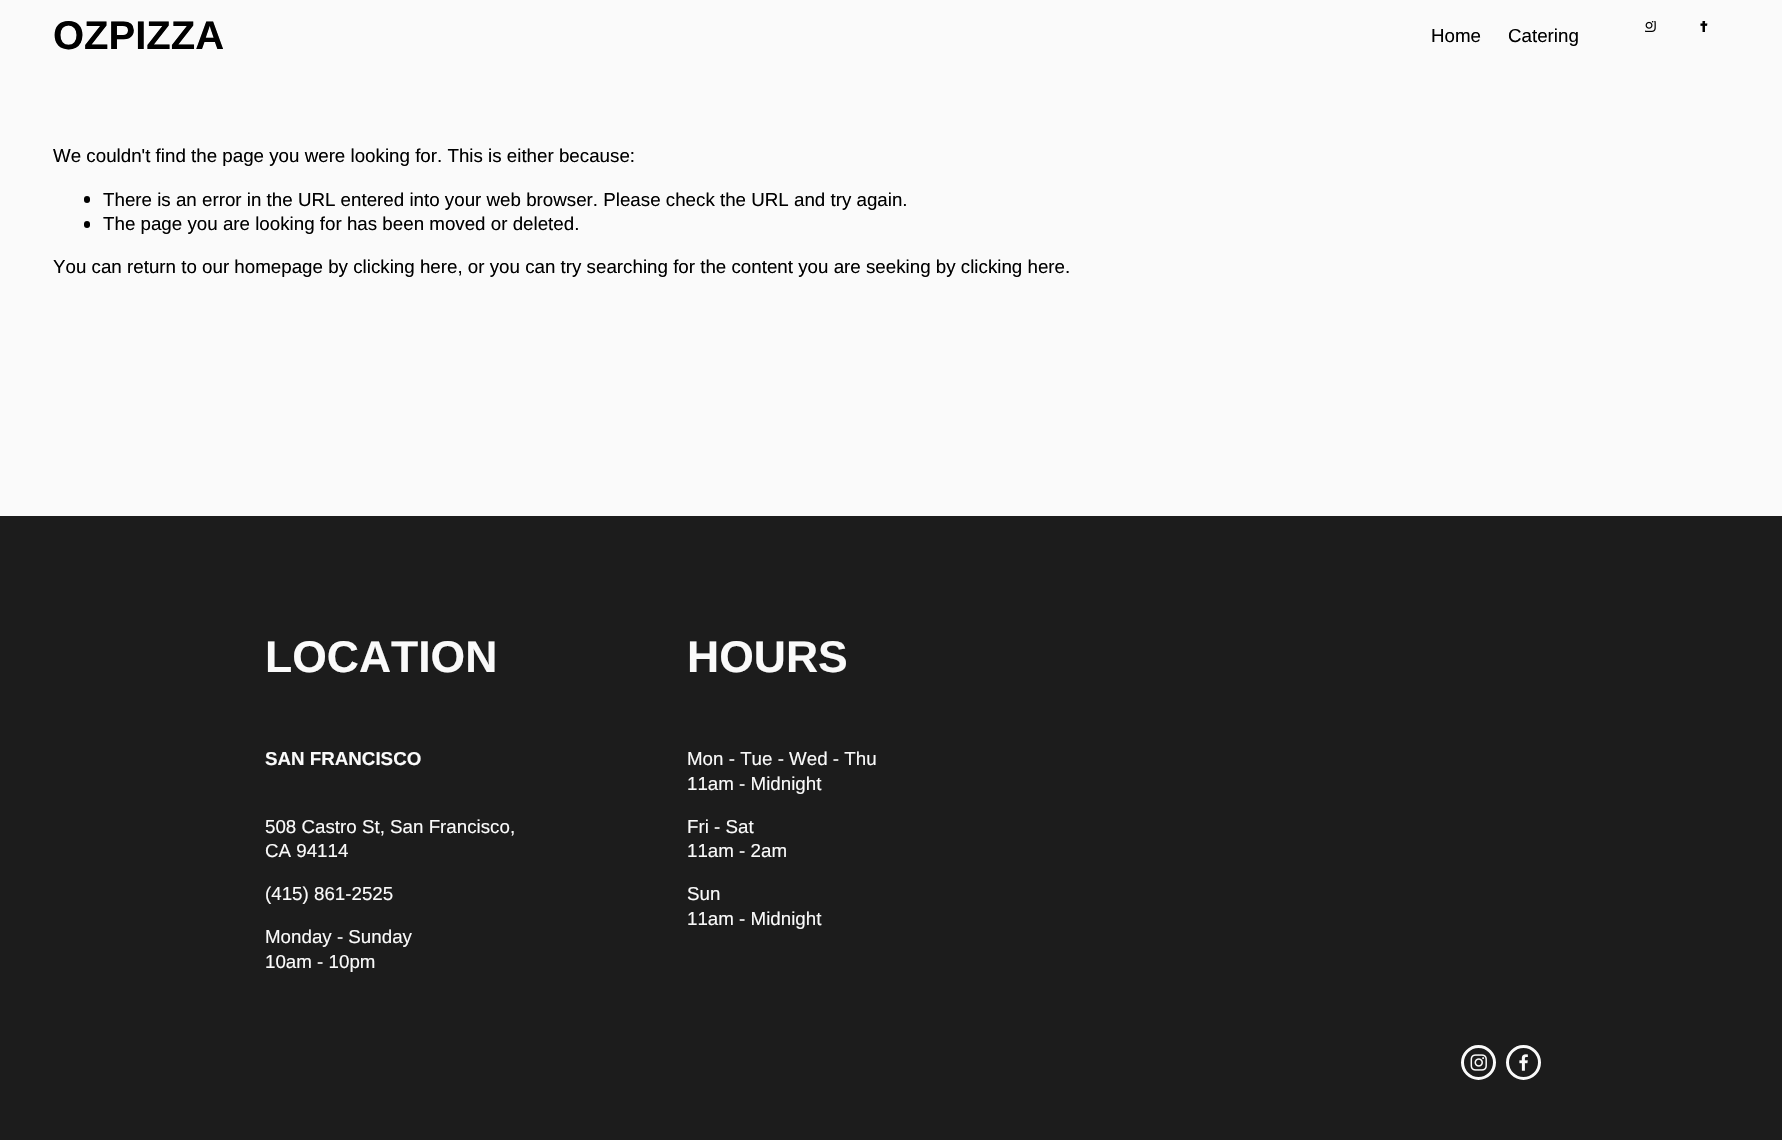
#include "include/core/SkBlurTypes.h"
#include "include/core/SkCanvas.h"
#include "include/core/SkData.h"
#include "include/core/SkFont.h"
#include "include/core/SkFontMgr.h"
#include "include/core/SkImage.h"
#include "include/core/SkMaskFilter.h"
#include "include/core/SkPaint.h"
#include "include/core/SkPathBuilder.h"
#include "include/core/SkTextBlob.h"
#include "include/effects/SkDashPathEffect.h"
#include "include/effects/SkGradientShader.h"
#include "include/utils/SkParsePath.h"

extern sk_sp<SkFontMgr> fontMgr;

static SkFont font(const char* family, int weight, float size, bool italic = false) {
    SkFontStyle style(weight, SkFontStyle::kNormal_Width,
        italic ? SkFontStyle::kItalic_Slant : SkFontStyle::kUpright_Slant);
    SkFont result(fontMgr->matchFamilyStyle(family, style), size);
    result.setSubpixel(true);
    return result;
}

static void drawLabel(SkCanvas* canvas, const char* s, float x, float y, const SkFont& font, SkColor color) {
    SkPaint ink(SkColor4f::FromColor(color));
    ink.setAntiAlias(true);
    canvas->drawString(s, x, y, font, ink);
}

static void fillRect(SkCanvas* canvas, float x, float y, float w, float h, SkColor color) {
    SkPaint ink(SkColor4f::FromColor(color));
    ink.setAntiAlias(true);
    canvas->drawRect(SkRect::MakeXYWH(x, y, w, h), ink);
}

static void fillRRect(SkCanvas* canvas, float x, float y, float w, float h, float radius, SkColor color) {
    SkPaint ink(SkColor4f::FromColor(color));
    ink.setAntiAlias(true);
    canvas->drawRoundRect(SkRect::MakeXYWH(x, y, w, h), radius, radius, ink);
}

static void drawPhoto(SkCanvas* canvas, const char* path, float x, float y, float w, float h) {
    auto image = SkImages::DeferredFromEncodedData(SkData::MakeFromFileName(path));
    canvas->drawImageRect(image, SkRect::MakeXYWH(x, y, w, h), SkSamplingOptions());
}

void draw(SkCanvas* canvas) {
    SkPaint paint;
    paint.setAntiAlias(true);
    canvas->clear(0xFFFAFAFA);
    SkFont font1 = font("Liberation Sans", 700, 40);
    drawLabel(canvas, "OZPIZZA", 53, 49, font1, 0xFF000000);
    SkFont font2 = font("Liberation Sans", 400, 18.75f);
    drawLabel(canvas, "Home", 1431, 42, font2, 0xFF000000);
    drawLabel(canvas, "Catering", 1508, 42, font2, 0xFF000000);
    drawPhoto(canvas, "assets/img1.png", 1645, 21, 11, 11);
    drawPhoto(canvas, "assets/img2.png", 1700, 21, 8, 11);
    drawLabel(canvas, "We couldn't find the page you were looking for. This is either because:", 53, 162, font2, 0xFF000000);
    fillRRect(canvas, 84, 196, 6, 7, 3, 0xFF000000);
    drawLabel(canvas, "There is an error in the URL entered into your web browser. Please check the URL and try again.", 103, 206, font2, 0xFF000000);
    fillRRect(canvas, 84, 221, 6, 7, 3, 0xFF000000);
    drawLabel(canvas, "The page you are looking for has been moved or deleted.", 103, 230, font2, 0xFF000000);
    drawLabel(canvas, "You can return to our homepage by clicking here, or you can try searching for the content you are seeking by clicking here.", 53, 273, font2, 0xFF000000);
    fillRect(canvas, 0, 516, 1782, 624, 0xFF1C1C1C);
    SkFont font3 = font("Liberation Sans", 700, 44.5f);
    drawLabel(canvas, "LOCATION", 265, 672, font3, 0xFFFAFAFA);
    drawLabel(canvas, "HOURS", 687, 672, font3, 0xFFFAFAFA);
    SkFont font4 = font("Liberation Sans", 700, 18.75f);
    drawLabel(canvas, "SAN FRANCISCO", 265, 765, font4, 0xFFFAFAFA);
    drawLabel(canvas, "508 Castro St, San Francisco,", 265, 833, font2, 0xFFFAFAFA);
    drawLabel(canvas, "CA 94114", 265, 857, font2, 0xFFFAFAFA);
    drawLabel(canvas, "(415) 861-2525", 265, 900, font2, 0xFFFAFAFA);
    drawLabel(canvas, "Monday - Sunday", 265, 943, font2, 0xFFFAFAFA);
    drawLabel(canvas, "10am - 10pm", 265, 968, font2, 0xFFFAFAFA);
    drawLabel(canvas, "Mon - Tue - Wed - Thu", 687, 765, font2, 0xFFFAFAFA);
    drawLabel(canvas, "11am - Midnight", 687, 790, font2, 0xFFFAFAFA);
    drawLabel(canvas, "Fri - Sat", 687, 833, font2, 0xFFFAFAFA);
    drawLabel(canvas, "11am - 2am", 687, 857, font2, 0xFFFAFAFA);
    drawLabel(canvas, "Sun", 687, 900, font2, 0xFFFAFAFA);
    drawLabel(canvas, "11am - Midnight", 687, 925, font2, 0xFFFAFAFA);
    paint.setStroke(true);
    paint.setStrokeWidth(3);
    paint.setColor(0xFFFAFAFA);
    canvas->drawCircle(1478.5f, 1062.5f, 16, paint);
    drawPhoto(canvas, "assets/img3.png", 1470, 1054, 17, 17);
    canvas->drawCircle(1523.5f, 1062.5f, 16, paint);
    drawPhoto(canvas, "assets/img4.png", 1519, 1054, 9, 17);
}
